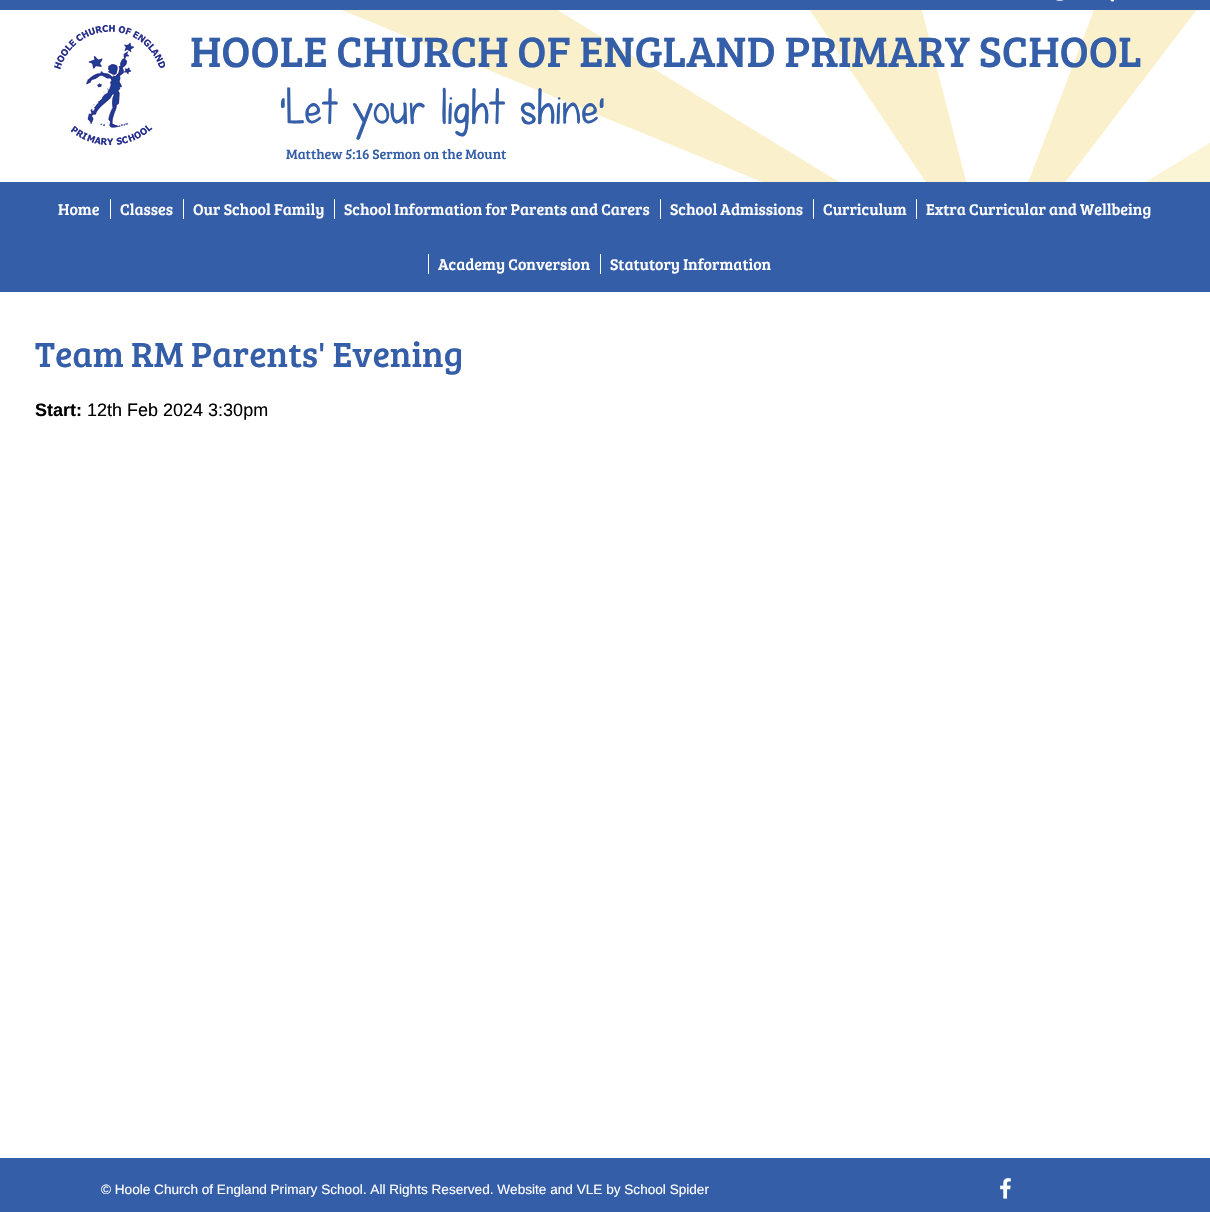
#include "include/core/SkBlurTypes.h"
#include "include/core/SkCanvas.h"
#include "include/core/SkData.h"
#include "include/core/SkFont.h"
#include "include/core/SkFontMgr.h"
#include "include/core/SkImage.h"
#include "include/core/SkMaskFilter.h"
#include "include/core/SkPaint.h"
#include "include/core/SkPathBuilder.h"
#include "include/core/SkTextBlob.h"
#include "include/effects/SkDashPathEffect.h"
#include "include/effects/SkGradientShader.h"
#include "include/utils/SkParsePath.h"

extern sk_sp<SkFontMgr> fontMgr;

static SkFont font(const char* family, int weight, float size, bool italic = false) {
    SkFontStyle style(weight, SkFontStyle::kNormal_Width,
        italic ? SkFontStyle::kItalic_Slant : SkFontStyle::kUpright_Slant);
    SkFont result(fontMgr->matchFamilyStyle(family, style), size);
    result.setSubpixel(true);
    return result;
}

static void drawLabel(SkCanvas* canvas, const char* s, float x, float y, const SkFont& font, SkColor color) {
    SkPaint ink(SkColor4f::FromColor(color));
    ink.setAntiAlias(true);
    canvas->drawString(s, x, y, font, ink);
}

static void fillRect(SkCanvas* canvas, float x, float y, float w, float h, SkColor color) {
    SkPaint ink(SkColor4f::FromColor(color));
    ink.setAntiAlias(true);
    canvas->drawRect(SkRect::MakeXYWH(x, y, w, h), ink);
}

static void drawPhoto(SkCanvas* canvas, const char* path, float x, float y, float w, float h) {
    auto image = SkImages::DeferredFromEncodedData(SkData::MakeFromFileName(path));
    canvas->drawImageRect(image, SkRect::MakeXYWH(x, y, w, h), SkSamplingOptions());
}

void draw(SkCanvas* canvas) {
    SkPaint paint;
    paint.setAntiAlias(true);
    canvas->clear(0xFFFFFFFF);
    fillRect(canvas, 0, 0, 1210, 10, 0xFF355EA8);
    drawPhoto(canvas, "assets/img1.png", 1056, 0, 8, 1);
    drawPhoto(canvas, "assets/img2.png", 1110, 0, 5, 2);
    drawPhoto(canvas, "assets/img3.png", 342, 10, 868, 172);
    drawPhoto(canvas, "assets/img4.png", 54, 25, 111, 120);
    SkFont font1 = font("Bree Serif", 400, 44);
    drawLabel(canvas, "HOOLE CHURCH OF ENGLAND PRIMARY SCHOOL", 190, 67, font1, 0xFF355EA8);
    SkFont font2 = font("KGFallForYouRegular", 400, 50);
    drawLabel(canvas, "‘Let your light shine’", 280, 124, font2, 0xFF355EA8);
    SkFont font3 = font("Bree Serif", 400, 14);
    drawLabel(canvas, "Matthew 5:16 Sermon on the Mount", 286, 159, font3, 0xFF355EA8);
    fillRect(canvas, 0, 182, 1210, 110, 0xFF355EA8);
    SkFont font4 = font("Bree Serif", 400, 16);
    drawLabel(canvas, "Home", 58, 215, font4, 0xFFFFFFFF);
    fillRect(canvas, 110, 199, 1, 20, 0xFFFFFFFF);
    drawLabel(canvas, "Classes", 120, 215, font4, 0xFFFFFFFF);
    fillRect(canvas, 183, 199, 1, 20, 0xFFFFFFFF);
    drawLabel(canvas, "Our School Family", 193, 215, font4, 0xFFFFFFFF);
    fillRect(canvas, 334, 199, 1, 20, 0xFFFFFFFF);
    drawLabel(canvas, "School Information for Parents and Carers", 344, 215, font4, 0xFFFFFFFF);
    fillRect(canvas, 660, 199, 1, 20, 0xFFFFFFFF);
    drawLabel(canvas, "School Admissions", 670, 215, font4, 0xFFFFFFFF);
    fillRect(canvas, 813, 199, 1, 20, 0xFFFFFFFF);
    drawLabel(canvas, "Curriculum", 823, 215, font4, 0xFFFFFFFF);
    fillRect(canvas, 916, 199, 1, 20, 0xFFFFFFFF);
    drawLabel(canvas, "Extra Curricular and Wellbeing", 926, 215, font4, 0xFFFFFFFF);
    fillRect(canvas, 428, 254, 1, 20, 0xFFFFFFFF);
    drawLabel(canvas, "Academy Conversion", 438, 270, font4, 0xFFFFFFFF);
    fillRect(canvas, 600, 254, 1, 20, 0xFFFFFFFF);
    drawLabel(canvas, "Statutory Information", 610, 270, font4, 0xFFFFFFFF);
    SkFont font5 = font("Bree Serif", 400, 36);
    drawLabel(canvas, "Team RM Parents' Evening", 35, 367, font5, 0xFF355EA8);
    SkFont font6 = font("Liberation Sans", 700, 18);
    drawLabel(canvas, "Start:", 35, 416, font6, 0xFF000000);
    SkFont font7 = font("Liberation Sans", 400, 18);
    drawLabel(canvas, "12th Feb 2024 3:30pm", 87, 416, font7, 0xFF000000);
    fillRect(canvas, 0, 1158, 1210, 54, 0xFF355EA8);
    SkFont font8 = font("Liberation Sans", 400, 13.6f);
    drawLabel(canvas, "© Hoole Church of England Primary School. All Rights Reserved. Website and VLE by School Spider", 101, 1194, font8, 0xFFFFFFFF);
    drawPhoto(canvas, "assets/img5.png", 1000, 1178, 11, 21);
}
